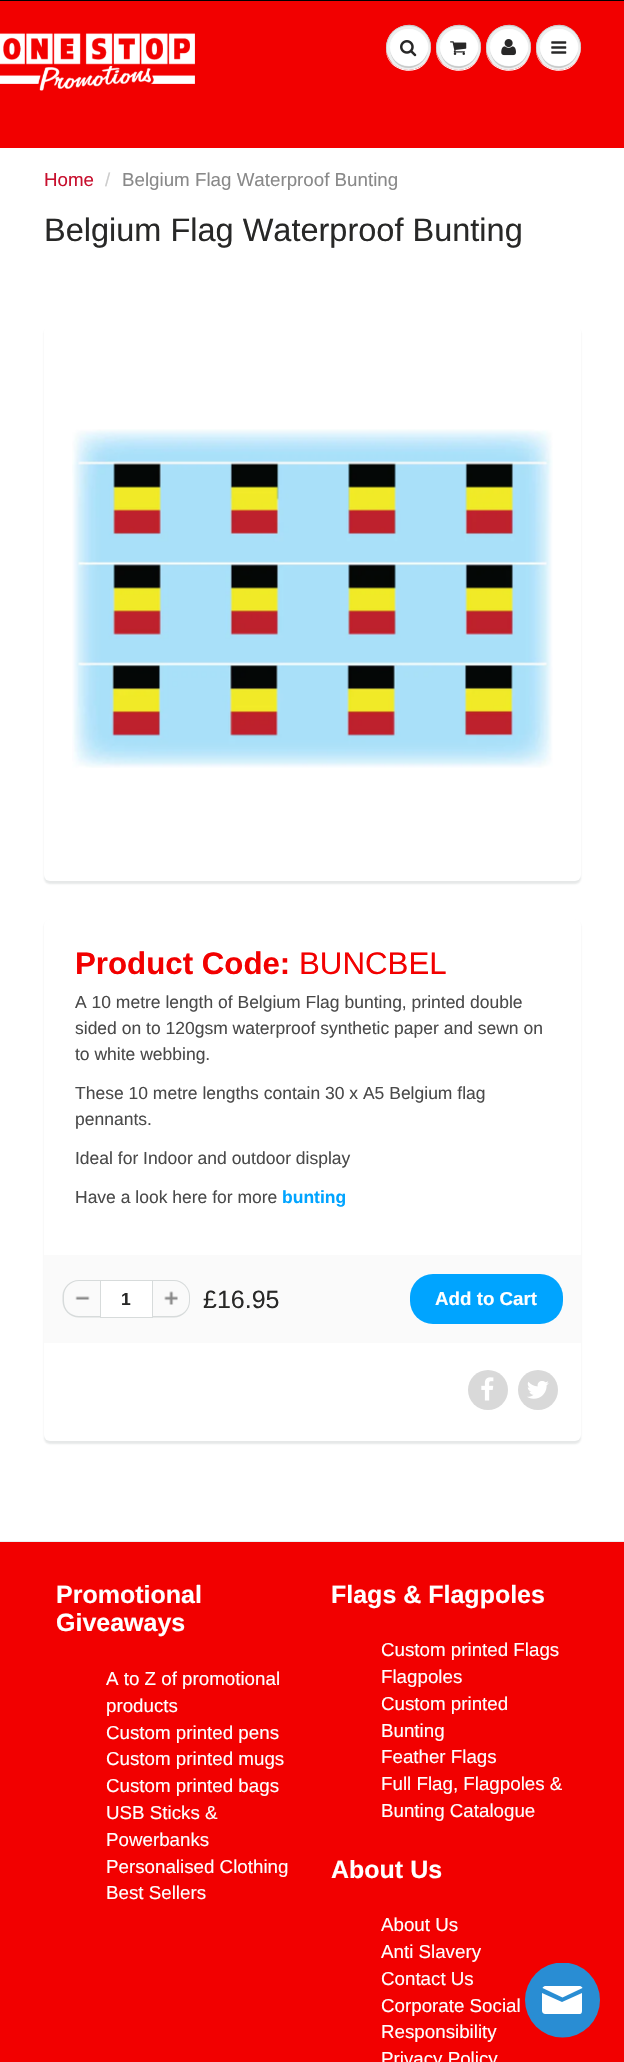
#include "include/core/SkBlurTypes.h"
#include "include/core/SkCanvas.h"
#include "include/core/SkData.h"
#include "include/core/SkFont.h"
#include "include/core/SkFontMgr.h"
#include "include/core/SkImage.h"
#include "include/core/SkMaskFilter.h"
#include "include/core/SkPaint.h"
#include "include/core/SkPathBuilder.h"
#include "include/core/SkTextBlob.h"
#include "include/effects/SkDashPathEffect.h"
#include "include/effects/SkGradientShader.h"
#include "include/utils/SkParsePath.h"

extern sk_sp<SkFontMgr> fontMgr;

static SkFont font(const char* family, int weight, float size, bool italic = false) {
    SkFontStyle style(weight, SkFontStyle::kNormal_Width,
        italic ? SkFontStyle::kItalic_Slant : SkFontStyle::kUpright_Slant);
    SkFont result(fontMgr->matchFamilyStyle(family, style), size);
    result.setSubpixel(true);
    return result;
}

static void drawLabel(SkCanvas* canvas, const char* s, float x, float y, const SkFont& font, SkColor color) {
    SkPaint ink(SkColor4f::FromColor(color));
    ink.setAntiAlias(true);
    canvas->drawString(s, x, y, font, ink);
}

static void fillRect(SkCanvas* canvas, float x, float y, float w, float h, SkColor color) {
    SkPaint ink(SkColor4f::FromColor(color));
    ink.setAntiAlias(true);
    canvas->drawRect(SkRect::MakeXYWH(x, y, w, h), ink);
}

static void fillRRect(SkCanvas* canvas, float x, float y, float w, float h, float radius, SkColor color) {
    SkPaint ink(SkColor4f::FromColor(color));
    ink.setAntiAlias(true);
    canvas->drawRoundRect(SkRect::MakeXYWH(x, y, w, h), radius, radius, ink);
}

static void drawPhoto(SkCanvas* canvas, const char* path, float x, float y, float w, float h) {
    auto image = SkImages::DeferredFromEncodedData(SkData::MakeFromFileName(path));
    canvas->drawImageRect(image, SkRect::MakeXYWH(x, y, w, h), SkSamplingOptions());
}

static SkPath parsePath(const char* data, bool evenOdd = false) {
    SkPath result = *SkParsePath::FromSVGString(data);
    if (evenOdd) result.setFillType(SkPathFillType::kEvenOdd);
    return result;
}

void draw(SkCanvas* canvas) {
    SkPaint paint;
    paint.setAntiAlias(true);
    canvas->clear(0xFF000000);
    fillRect(canvas, 0, 1, 624, 147, 0xFFF20000);
    drawPhoto(canvas, "assets/img1.png", 0, 33, 195, 58);
    paint.setColor(0xFFFFFFFF);
    canvas->drawPath(parsePath("M430 53C423 81 380 71 387 43C379 72 424 83 430 53Z"), paint);
    paint.setColor(0xFFEDEFEF);
    canvas->drawCircle(408.5f, 47.5f, 22.5f, paint);
    paint.setColor(0xFFC9CBCB);
    canvas->drawPath(parsePath("M409 26C425 26 432 40 430 53C432 47 431 40 427 35C412 12 378 32 388 56C384 43 391 26 409 26Z"), paint);
    canvas->drawPath(parsePath("M390 48C390 53.5 392 58.5 395.5 62.5C410 77 434 60.5 426.5 42C432 60 409.5 74.5 395.5 61C392.5 57.5 390 53 390 48Z"), paint);
    fillRRect(canvas, 390, 29, 38, 37, 18.5f, 0xFFFFFFFF);
    paint.setColor(0xFFFFFFFF);
    canvas->drawPath(parsePath("M409 30C424 30 430 45 426 56C437 36 406 18 393 37C390 41 389 46 390 51C389 41 396 30 409 30Z"), paint);
    drawPhoto(canvas, "assets/img2.png", 400, 40, 17, 17);
    canvas->drawPath(parsePath("M480 53C473 81 430 71 437 43C429 72 474 83 480 53Z"), paint);
    paint.setColor(0xFFEDEFEF);
    canvas->drawCircle(458.5f, 47.5f, 22.5f, paint);
    paint.setColor(0xFFC9CBCB);
    canvas->drawPath(parsePath("M459 26C475 26 482 40 480 53C482 47 481 40 477 35C462 12 428 32 438 56C434 43 441 26 459 26Z"), paint);
    canvas->drawPath(parsePath("M440 48C440 53.5 442 58.5 445.5 62.5C460 77 484 60.5 476.5 42C482 60 459.5 74.5 445.5 61C442.5 57.5 440 53 440 48Z"), paint);
    fillRRect(canvas, 440, 29, 38, 37, 18.5f, 0xFFFFFFFF);
    paint.setColor(0xFFFFFFFF);
    canvas->drawPath(parsePath("M459 30C474 30 480 45 476 56C487 36 456 18 443 37C440 41 439 46 440 51C439 41 446 30 459 30Z"), paint);
    drawPhoto(canvas, "assets/img3.png", 450, 41, 17, 14);
    canvas->drawPath(parsePath("M487 43C479 72 524 83 530 53C523 81 480 71 487 43Z"), paint);
    paint.setColor(0xFFEDEFEF);
    canvas->drawCircle(508.5f, 47.5f, 22.5f, paint);
    paint.setColor(0xFFC9CBCB);
    canvas->drawPath(parsePath("M509 26C525 26 532 40 530 53C532 47 531 40 527 35C512 12 478 32 488 56C484 43 491 26 509 26Z"), paint);
    canvas->drawPath(parsePath("M490 48C490 53.5 492 58.5 495.5 62.5C510 77 534 60.5 526.5 42C532 60 509.5 74.5 495.5 61C492.5 57.5 490 53 490 48Z"), paint);
    fillRRect(canvas, 490, 29, 38, 37, 18.5f, 0xFFFFFFFF);
    paint.setColor(0xFFFFFFFF);
    canvas->drawPath(parsePath("M509 30C524 30 530 45 526 56C537 36 506 18 493 37C490 41 489 46 490 51C489 41 496 30 509 30Z"), paint);
    drawPhoto(canvas, "assets/img4.png", 501, 39, 15, 17);
    canvas->drawPath(parsePath("M537 43C529 72 574 83 580 53C573 81 530 71 537 43Z"), paint);
    paint.setColor(0xFFEDEFEF);
    canvas->drawCircle(558.5f, 47.5f, 22.5f, paint);
    paint.setColor(0xFFC9CBCB);
    canvas->drawPath(parsePath("M559 26C575 26 582 40 580 53C582 47 581 40 577 35C562 12 528 32 538 56C534 43 541 26 559 26Z"), paint);
    canvas->drawPath(parsePath("M540 48C540 53.5 542 58.5 545.5 62.5C560 77 584 60.5 576.5 42C582 60 559.5 74.5 545.5 61C542.5 57.5 540 53 540 48Z"), paint);
    fillRRect(canvas, 540, 29, 38, 37, 18.5f, 0xFFFFFFFF);
    paint.setColor(0xFFFFFFFF);
    canvas->drawPath(parsePath("M559 30C574 30 580 45 576 56C587 36 556 18 543 37C540 41 539 46 540 51C539 41 546 30 559 30Z"), paint);
    drawPhoto(canvas, "assets/img5.png", 551, 41, 16, 13);
    fillRect(canvas, 0, 148, 624, 1393, 0xFFFFFFFF);
    SkFont font1 = font("Liberation Sans", 400, 18.75f);
    drawLabel(canvas, "Home", 44, 186, font1, 0xFFC8102E);
    drawLabel(canvas, "/", 105, 186, font1, 0xFFCCCCCC);
    drawLabel(canvas, "Belgium Flag Waterproof Bunting", 122, 186, font1, 0xFF898989);
    SkFont font2 = font("Liberation Sans", 400, 32.5f);
    drawLabel(canvas, "Belgium Flag Waterproof Bunting", 44, 241, font2, 0xFF282827);
    paint.setColor(0x1A0B191C);
    paint.setMaskFilter(SkMaskFilter::MakeBlur(kNormal_SkBlurStyle, 1));
    canvas->drawRoundRect(SkRect::MakeXYWH(44, 328, 537, 556), 6, 6, paint);
    paint.setMaskFilter(nullptr);
    fillRRect(canvas, 44, 325, 537, 556, 6, 0xFFFFFFFF);
    drawPhoto(canvas, "assets/img6.png", 72, 429, 481, 339);
    paint.setMaskFilter(SkMaskFilter::MakeBlur(kNormal_SkBlurStyle, 1));
    canvas->drawRoundRect(SkRect::MakeXYWH(44, 921, 537, 523), 6, 6, paint);
    paint.setMaskFilter(nullptr);
    fillRRect(canvas, 44, 919, 537, 522, 6, 0xFFFFFFFF);
    SkFont font3 = font("Liberation Sans", 700, 31.25f);
    drawLabel(canvas, "Product Code:", 75, 974, font3, 0xFFF20000);
    SkFont font4 = font("Liberation Sans", 400, 31.25f);
    drawLabel(canvas, "BUNCBEL", 299, 974, font4, 0xFFF20000);
    SkFont font5 = font("Liberation Sans", 400, 17.5f);
    drawLabel(canvas, "A 10 metre length of Belgium Flag bunting, printed double", 75, 1008, font5, 0xFF4A4A4A);
    drawLabel(canvas, "sided on to 120gsm waterproof synthetic paper and sewn on", 75, 1034, font5, 0xFF4A4A4A);
    drawLabel(canvas, "to white webbing.", 75, 1060, font5, 0xFF4A4A4A);
    drawLabel(canvas, "These 10 metre lengths contain 30 x A5 Belgium flag", 75, 1099, font5, 0xFF4A4A4A);
    drawLabel(canvas, "pennants.", 75, 1125, font5, 0xFF4A4A4A);
    drawLabel(canvas, "Ideal for Indoor and outdoor display", 75, 1164, font5, 0xFF4A4A4A);
    drawLabel(canvas, "Have a look here for more", 75, 1203, font5, 0xFF4A4A4A);
    SkFont font6 = font("Liberation Sans", 700, 17.5f);
    drawLabel(canvas, "bunting", 282, 1203, font6, 0xFF00A4FF);
    fillRect(canvas, 0, 1542, 624, 520, 0xFFF20000);
    canvas->save();
    canvas->clipRect(SkRect::MakeXYWH(525, 1963, 75, 75));
    paint.setColor(0xFF298DD3);
    canvas->drawCircle(562.5f, 2000, 37.5f, paint);
    canvas->restore();
    paint.setColor(0xFFFFFFFF);
    canvas->drawPath(parsePath("M542.5 1988L562.5 1997.5L582.5 1988C582 1987 581 1986 580 1986H545C544 1986 543 1987 542.5 1988Z"), paint);
    canvas->drawPath(parsePath("M582 1993L562 2002L542 1993V2011C542 2013 544 2014 545 2014H580C581 2014 582 2013 582 2011Z"), paint);
    fillRect(canvas, 44, 1255, 537, 88, 0xFFFAFAFA);
    drawPhoto(canvas, "assets/img7.png", 75, 1296, 15, 4);
    paint.setColor(0xFFD7DBDB);
    canvas->drawPath(parsePath("M79 1280H100V1317.5H79C70 1317.5 62.5 1310 62.5 1301V1296C62.5 1287.5 70 1280 79 1280ZM79 1281H100V1316H79C70.5 1316 64 1309.5 64 1301V1296C64 1288 70.5 1281 79 1281Z", true), paint);
    paint.setColor(0xFFFFFFFF);
    canvas->drawRect(SkRect::MakeXYWH(100.5f, 1280.5f, 52, 37), paint);
    paint.setStroke(true);
    paint.setStrokeWidth(1);
    paint.setColor(0xFFD7DBDB);
    canvas->drawRect(SkRect::MakeXYWH(100.5f, 1280.5f, 52, 37), paint);
    drawLabel(canvas, "1", 121, 1305, font6, 0xFF282827);
    drawPhoto(canvas, "assets/img8.png", 164, 1291, 14, 14);
    paint.setStroke(false);
    canvas->drawPath(parsePath("M152.5 1280H174C182.5 1280 190 1287.5 190 1296V1301C190 1310 182.5 1317.5 174 1317.5H152.5ZM152.5 1281H174C182 1281 189 1288 189 1296V1301C189 1309.5 182 1316 174 1316H152.5Z", true), paint);
    SkFont font7 = font("Liberation Sans", 400, 25);
    drawLabel(canvas, "£16.95", 203, 1308, font7, 0xFF282827);
    fillRRect(canvas, 410, 1274, 153, 50, 23, 0xFF00A4FF);
    SkFont font8 = font("Liberation Sans", 700, 18.75f);
    drawLabel(canvas, "Add to Cart", 435, 1305, font8, 0xFFFFFFFF);
    paint.setColor(0xFFD9D9D9);
    canvas->drawCircle(488, 1390, 20, paint);
    drawPhoto(canvas, "assets/img9.png", 481, 1377, 13, 24);
    canvas->drawCircle(538, 1390, 20, paint);
    drawPhoto(canvas, "assets/img10.png", 527, 1381, 22, 18);
    fillRect(canvas, 0, 1541, 624, 1, 0xFFECEFEF);
    SkFont font9 = font("Liberation Sans", 700, 25);
    drawLabel(canvas, "Promotional", 56, 1603, font9, 0xFFFFFFFF);
    drawLabel(canvas, "Giveaways", 56, 1631, font9, 0xFFFFFFFF);
    drawLabel(canvas, "A to Z of promotional", 106, 1685, font1, 0xFFFFFFFF);
    drawLabel(canvas, "products", 106, 1712, font1, 0xFFFFFFFF);
    drawLabel(canvas, "Custom printed pens", 106, 1739, font1, 0xFFFFFFFF);
    drawLabel(canvas, "Custom printed mugs", 106, 1765, font1, 0xFFFFFFFF);
    drawLabel(canvas, "Custom printed bags", 106, 1792, font1, 0xFFFFFFFF);
    drawLabel(canvas, "USB Sticks &", 106, 1819, font1, 0xFFFFFFFF);
    drawLabel(canvas, "Powerbanks", 106, 1846, font1, 0xFFFFFFFF);
    drawLabel(canvas, "Personalised Clothing", 106, 1873, font1, 0xFFFFFFFF);
    drawLabel(canvas, "Best Sellers", 106, 1899, font1, 0xFFFFFFFF);
    drawLabel(canvas, "Flags & Flagpoles", 331, 1603, font9, 0xFFFFFFFF);
    drawLabel(canvas, "Custom printed Flags", 381, 1656, font1, 0xFFFFFFFF);
    drawLabel(canvas, "Flagpoles", 381, 1683, font1, 0xFFFFFFFF);
    drawLabel(canvas, "Custom printed", 381, 1710, font1, 0xFFFFFFFF);
    drawLabel(canvas, "Bunting", 381, 1737, font1, 0xFFFFFFFF);
    drawLabel(canvas, "Feather Flags", 381, 1763, font1, 0xFFFFFFFF);
    drawLabel(canvas, "Full Flag, Flagpoles &", 381, 1790, font1, 0xFFFFFFFF);
    drawLabel(canvas, "Bunting Catalogue", 381, 1817, font1, 0xFFFFFFFF);
    drawLabel(canvas, "About Us", 331, 1878, font9, 0xFFFFFFFF);
    drawLabel(canvas, "About Us", 381, 1931, font1, 0xFFFFFFFF);
    drawLabel(canvas, "Anti Slavery", 381, 1958, font1, 0xFFFFFFFF);
    drawLabel(canvas, "Contact Us", 381, 1985, font1, 0xFFFFFFFF);
    drawLabel(canvas, "Corporate Social", 381, 2012, font1, 0xFFFFFFFF);
    drawLabel(canvas, "Responsibility", 381, 2038, font1, 0xFFFFFFFF);
    drawLabel(canvas, "Privacy Policy", 381, 2065, font1, 0xFFFFFFFF);
}
